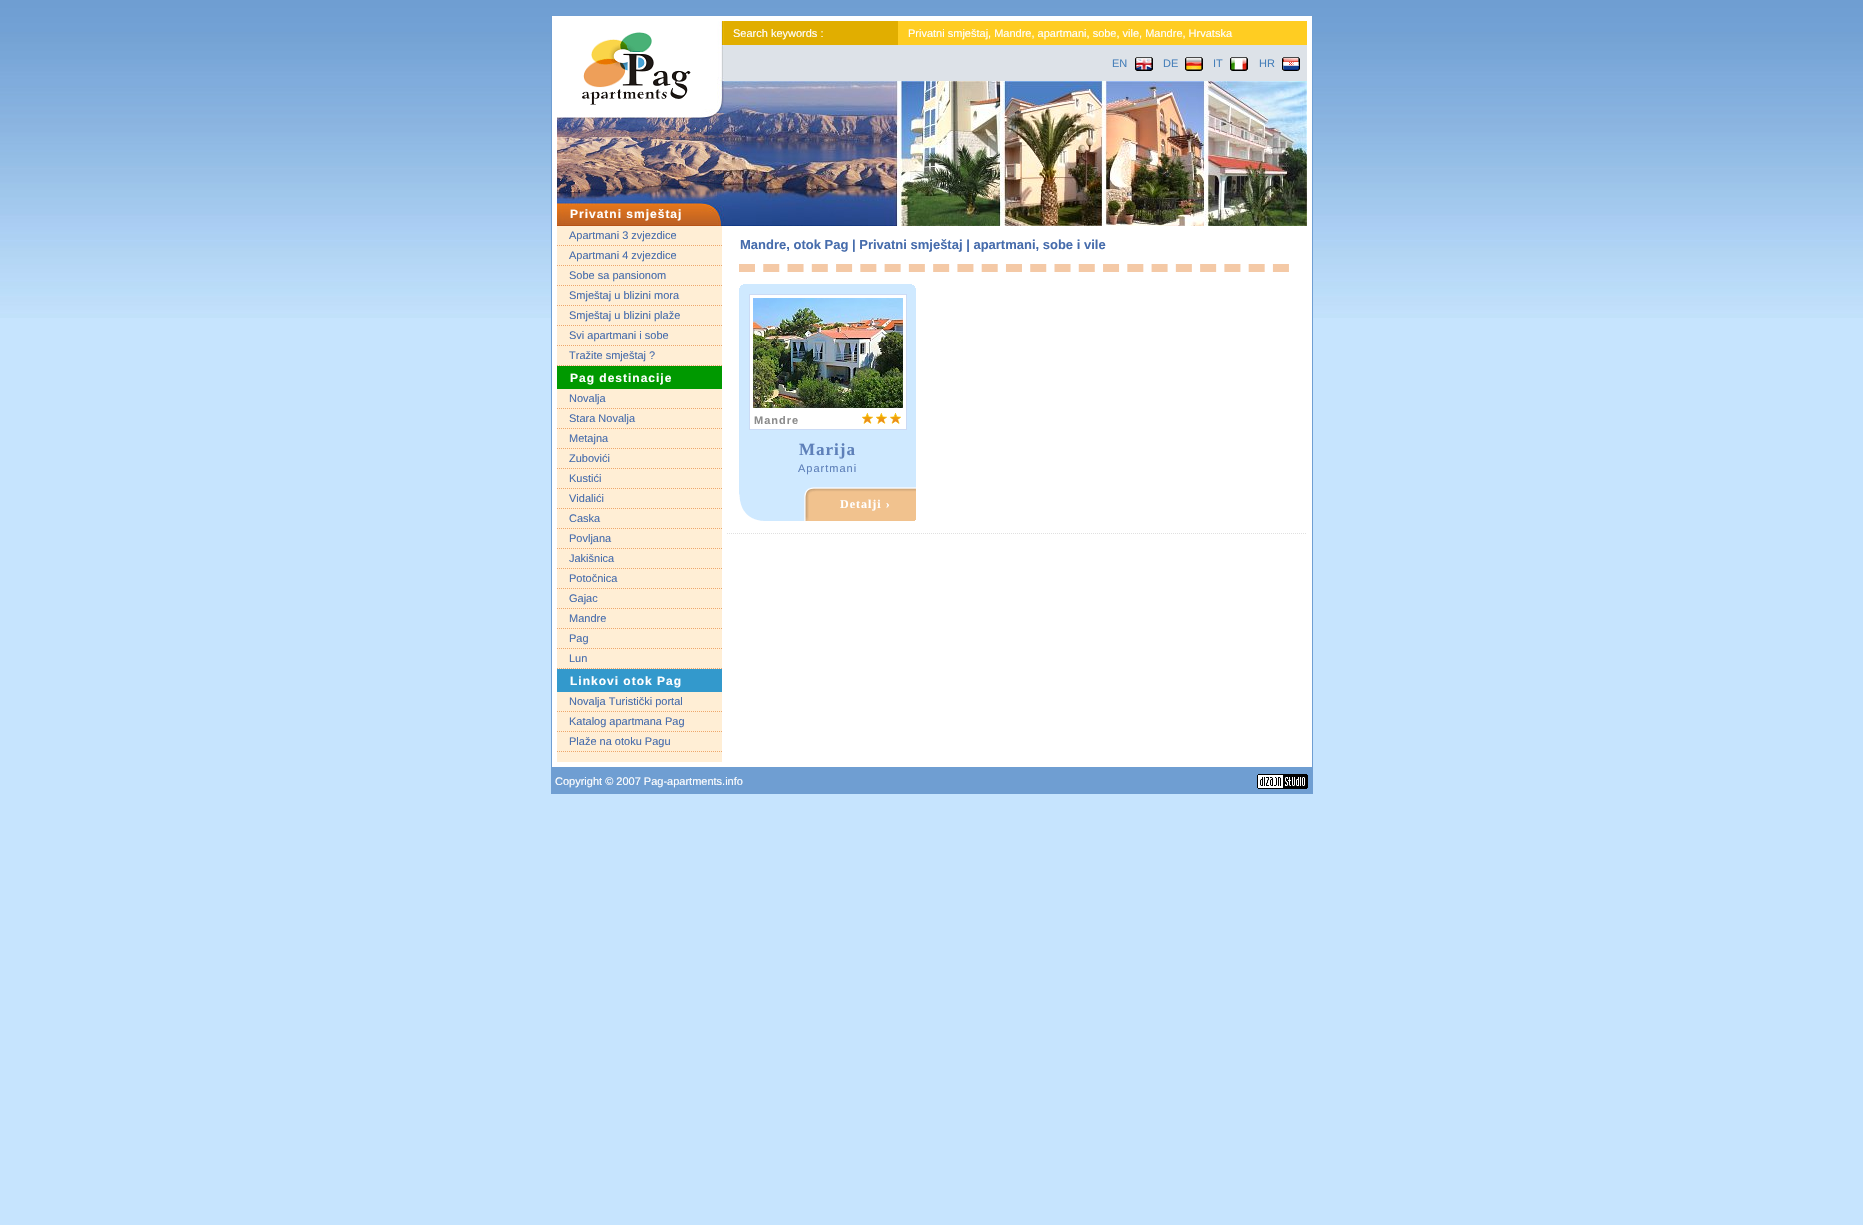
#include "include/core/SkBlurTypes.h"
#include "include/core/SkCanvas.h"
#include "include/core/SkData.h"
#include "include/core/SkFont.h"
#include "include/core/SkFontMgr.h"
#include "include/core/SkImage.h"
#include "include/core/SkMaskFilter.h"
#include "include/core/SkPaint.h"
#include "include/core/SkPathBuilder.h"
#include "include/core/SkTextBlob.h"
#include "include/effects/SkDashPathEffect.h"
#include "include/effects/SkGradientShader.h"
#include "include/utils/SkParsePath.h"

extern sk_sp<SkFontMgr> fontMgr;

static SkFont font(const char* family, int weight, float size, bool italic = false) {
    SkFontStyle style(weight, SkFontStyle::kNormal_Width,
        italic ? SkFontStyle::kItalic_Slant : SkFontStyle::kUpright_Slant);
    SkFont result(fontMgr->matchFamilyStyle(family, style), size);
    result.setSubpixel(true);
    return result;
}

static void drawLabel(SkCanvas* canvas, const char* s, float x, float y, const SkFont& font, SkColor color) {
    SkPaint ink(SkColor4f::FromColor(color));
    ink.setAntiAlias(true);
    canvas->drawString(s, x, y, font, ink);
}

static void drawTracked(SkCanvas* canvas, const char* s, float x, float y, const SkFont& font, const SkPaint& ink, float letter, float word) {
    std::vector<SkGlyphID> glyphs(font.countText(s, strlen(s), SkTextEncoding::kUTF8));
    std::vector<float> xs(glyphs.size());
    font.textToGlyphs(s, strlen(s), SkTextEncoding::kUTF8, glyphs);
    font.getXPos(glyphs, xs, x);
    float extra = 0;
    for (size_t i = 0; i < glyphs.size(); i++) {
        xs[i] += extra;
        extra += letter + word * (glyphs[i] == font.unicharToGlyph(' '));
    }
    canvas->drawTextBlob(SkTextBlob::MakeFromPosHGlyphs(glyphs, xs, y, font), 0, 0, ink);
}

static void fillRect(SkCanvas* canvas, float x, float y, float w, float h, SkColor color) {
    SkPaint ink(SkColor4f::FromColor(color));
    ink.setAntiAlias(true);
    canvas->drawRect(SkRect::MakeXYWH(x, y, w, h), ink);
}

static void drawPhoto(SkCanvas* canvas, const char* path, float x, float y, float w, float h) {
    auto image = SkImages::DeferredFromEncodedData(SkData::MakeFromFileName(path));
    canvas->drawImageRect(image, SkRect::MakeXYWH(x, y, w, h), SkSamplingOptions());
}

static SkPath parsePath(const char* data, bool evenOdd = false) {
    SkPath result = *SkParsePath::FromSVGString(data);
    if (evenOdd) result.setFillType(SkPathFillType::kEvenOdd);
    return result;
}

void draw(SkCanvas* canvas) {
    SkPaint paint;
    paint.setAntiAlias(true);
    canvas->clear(0xFFC6E4FE);
    drawPhoto(canvas, "assets/img1.png", 0, 0, 1863, 318);
    paint.setColor(0xFFFFFFFF);
    canvas->drawRect(SkRect::MakeXYWH(551.5f, 15.5f, 761, 752), paint);
    paint.setStroke(true);
    paint.setStrokeWidth(1);
    paint.setColor(0xFF6F9ED2);
    canvas->drawRect(SkRect::MakeXYWH(551.5f, 15.5f, 761, 752), paint);
    fillRect(canvas, 724, 21, 174, 24, 0xFFE1AE00);
    SkFont font1 = font("Liberation Sans", 400, 11);
    drawLabel(canvas, "Search keywords :", 733, 37, font1, 0xFFFFFFFF);
    fillRect(canvas, 898, 21, 409, 24, 0xFFFFCD22);
    drawLabel(canvas, "Privatni smještaj, Mandre, apartmani, sobe, vile, Mandre, Hrvatska", 908, 37, font1, 0xFFFFFFFF);
    fillRect(canvas, 724, 45, 583, 36, 0xFFDDE2E8);
    drawLabel(canvas, "EN", 1112, 67, font1, 0xFF447EB9);
    drawPhoto(canvas, "assets/img2.png", 1135, 57, 18, 14);
    drawLabel(canvas, "DE", 1163, 67, font1, 0xFF447EB9);
    drawPhoto(canvas, "assets/img3.png", 1185, 57, 18, 14);
    drawLabel(canvas, "IT", 1213, 67, font1, 0xFF447EB9);
    drawPhoto(canvas, "assets/img4.png", 1230, 57, 18, 14);
    drawLabel(canvas, "HR", 1259, 67, font1, 0xFF447EB9);
    drawPhoto(canvas, "assets/img5.png", 1282, 57, 18, 14);
    drawPhoto(canvas, "assets/img6.png", 724, 81, 583, 145);
    drawPhoto(canvas, "assets/img7.png", 557, 21, 167, 205);
    drawPhoto(canvas, "assets/img8.png", 582, 32, 109, 73);
    SkFont font2 = font("Liberation Sans", 700, 12);
    paint.setStroke(false);
    paint.setColor(0xFFFFFFFF);
    drawTracked(canvas, "Privatni smještaj", 570, 218, font2, paint, 1, 0);
    fillRect(canvas, 557, 226, 165, 536, 0xFFFFEED5);
    paint.setStroke(true);
    paint.setColor(0xFFEEA76C);
    paint.setPathEffect(SkDashPathEffect::Make({{1, 1}}, 0));
    canvas->drawPath(parsePath("M557 245.5H722"), paint);
    paint.setPathEffect(nullptr);
    drawLabel(canvas, "Apartmani 3 zvjezdice", 569, 239, font1, 0xFF466CAC);
    paint.setPathEffect(SkDashPathEffect::Make({{1, 1}}, 0));
    canvas->drawPath(parsePath("M557 265.5H722"), paint);
    paint.setPathEffect(nullptr);
    drawLabel(canvas, "Apartmani 4 zvjezdice", 569, 259, font1, 0xFF466CAC);
    paint.setPathEffect(SkDashPathEffect::Make({{1, 1}}, 0));
    canvas->drawPath(parsePath("M557 285.5H722"), paint);
    paint.setPathEffect(nullptr);
    drawLabel(canvas, "Sobe sa pansionom", 569, 279, font1, 0xFF466CAC);
    paint.setPathEffect(SkDashPathEffect::Make({{1, 1}}, 0));
    canvas->drawPath(parsePath("M557 305.5H722"), paint);
    paint.setPathEffect(nullptr);
    drawLabel(canvas, "Smještaj u blizini mora", 569, 299, font1, 0xFF466CAC);
    paint.setPathEffect(SkDashPathEffect::Make({{1, 1}}, 0));
    canvas->drawPath(parsePath("M557 325.5H722"), paint);
    paint.setPathEffect(nullptr);
    drawLabel(canvas, "Smještaj u blizini plaže", 569, 319, font1, 0xFF466CAC);
    paint.setPathEffect(SkDashPathEffect::Make({{1, 1}}, 0));
    canvas->drawPath(parsePath("M557 345.5H722"), paint);
    paint.setPathEffect(nullptr);
    drawLabel(canvas, "Svi apartmani i sobe", 569, 339, font1, 0xFF466CAC);
    paint.setPathEffect(SkDashPathEffect::Make({{1, 1}}, 0));
    canvas->drawPath(parsePath("M557 365.5H722"), paint);
    paint.setPathEffect(nullptr);
    drawLabel(canvas, "Tražite smještaj ?", 569, 359, font1, 0xFF466CAC);
    fillRect(canvas, 557, 366, 165, 23, 0xFF009900);
    paint.setStroke(false);
    paint.setColor(0xFFFFFFFF);
    drawTracked(canvas, "Pag destinacije", 570, 382, font2, paint, 1, 0);
    paint.setStroke(true);
    paint.setColor(0xFFEEA76C);
    paint.setPathEffect(SkDashPathEffect::Make({{1, 1}}, 0));
    canvas->drawPath(parsePath("M557 408.5H722"), paint);
    paint.setPathEffect(nullptr);
    drawLabel(canvas, "Novalja", 569, 402, font1, 0xFF466CAC);
    paint.setPathEffect(SkDashPathEffect::Make({{1, 1}}, 0));
    canvas->drawPath(parsePath("M557 428.5H722"), paint);
    paint.setPathEffect(nullptr);
    drawLabel(canvas, "Stara Novalja", 569, 422, font1, 0xFF466CAC);
    paint.setPathEffect(SkDashPathEffect::Make({{1, 1}}, 0));
    canvas->drawPath(parsePath("M557 448.5H722"), paint);
    paint.setPathEffect(nullptr);
    drawLabel(canvas, "Metajna", 569, 442, font1, 0xFF466CAC);
    paint.setPathEffect(SkDashPathEffect::Make({{1, 1}}, 0));
    canvas->drawPath(parsePath("M557 468.5H722"), paint);
    paint.setPathEffect(nullptr);
    drawLabel(canvas, "Zubovići", 569, 462, font1, 0xFF466CAC);
    paint.setPathEffect(SkDashPathEffect::Make({{1, 1}}, 0));
    canvas->drawPath(parsePath("M557 488.5H722"), paint);
    paint.setPathEffect(nullptr);
    drawLabel(canvas, "Kustići", 569, 482, font1, 0xFF466CAC);
    paint.setPathEffect(SkDashPathEffect::Make({{1, 1}}, 0));
    canvas->drawPath(parsePath("M557 508.5H722"), paint);
    paint.setPathEffect(nullptr);
    drawLabel(canvas, "Vidalići", 569, 502, font1, 0xFF466CAC);
    paint.setPathEffect(SkDashPathEffect::Make({{1, 1}}, 0));
    canvas->drawPath(parsePath("M557 528.5H722"), paint);
    paint.setPathEffect(nullptr);
    drawLabel(canvas, "Caska", 569, 522, font1, 0xFF466CAC);
    paint.setPathEffect(SkDashPathEffect::Make({{1, 1}}, 0));
    canvas->drawPath(parsePath("M557 548.5H722"), paint);
    paint.setPathEffect(nullptr);
    drawLabel(canvas, "Povljana", 569, 542, font1, 0xFF466CAC);
    paint.setPathEffect(SkDashPathEffect::Make({{1, 1}}, 0));
    canvas->drawPath(parsePath("M557 568.5H722"), paint);
    paint.setPathEffect(nullptr);
    drawLabel(canvas, "Jakišnica", 569, 562, font1, 0xFF466CAC);
    paint.setPathEffect(SkDashPathEffect::Make({{1, 1}}, 0));
    canvas->drawPath(parsePath("M557 588.5H722"), paint);
    paint.setPathEffect(nullptr);
    drawLabel(canvas, "Potočnica", 569, 582, font1, 0xFF466CAC);
    paint.setPathEffect(SkDashPathEffect::Make({{1, 1}}, 0));
    canvas->drawPath(parsePath("M557 608.5H722"), paint);
    paint.setPathEffect(nullptr);
    drawLabel(canvas, "Gajac", 569, 602, font1, 0xFF466CAC);
    paint.setPathEffect(SkDashPathEffect::Make({{1, 1}}, 0));
    canvas->drawPath(parsePath("M557 628.5H722"), paint);
    paint.setPathEffect(nullptr);
    drawLabel(canvas, "Mandre", 569, 622, font1, 0xFF466CAC);
    paint.setPathEffect(SkDashPathEffect::Make({{1, 1}}, 0));
    canvas->drawPath(parsePath("M557 648.5H722"), paint);
    paint.setPathEffect(nullptr);
    drawLabel(canvas, "Pag", 569, 642, font1, 0xFF466CAC);
    paint.setPathEffect(SkDashPathEffect::Make({{1, 1}}, 0));
    canvas->drawPath(parsePath("M557 668.5H722"), paint);
    paint.setPathEffect(nullptr);
    drawLabel(canvas, "Lun", 569, 662, font1, 0xFF466CAC);
    fillRect(canvas, 557, 669, 165, 23, 0xFF3399CC);
    paint.setStroke(false);
    paint.setColor(0xFFFFFFFF);
    drawTracked(canvas, "Linkovi otok Pag", 570, 685, font2, paint, 1, 0);
    paint.setStroke(true);
    paint.setColor(0xFFEEA76C);
    paint.setPathEffect(SkDashPathEffect::Make({{1, 1}}, 0));
    canvas->drawPath(parsePath("M557 711.5H722"), paint);
    paint.setPathEffect(nullptr);
    drawLabel(canvas, "Novalja Turistički portal", 569, 705, font1, 0xFF466CAC);
    paint.setPathEffect(SkDashPathEffect::Make({{1, 1}}, 0));
    canvas->drawPath(parsePath("M557 731.5H722"), paint);
    paint.setPathEffect(nullptr);
    drawLabel(canvas, "Katalog apartmana Pag", 569, 725, font1, 0xFF466CAC);
    paint.setPathEffect(SkDashPathEffect::Make({{1, 1}}, 0));
    canvas->drawPath(parsePath("M557 751.5H722"), paint);
    paint.setPathEffect(nullptr);
    drawLabel(canvas, "Plaže na otoku Pagu", 569, 745, font1, 0xFF466CAC);
    SkFont font3 = font("Liberation Sans", 700, 13);
    drawLabel(canvas, "Mandre, otok Pag | Privatni smještaj | apartmani, sobe i vile", 740, 249, font3, 0xFF466CAC);
    paint.setStrokeWidth(8);
    paint.setColor(0xFFF4C9A6);
    paint.setPathEffect(SkDashPathEffect::Make({{16, 8.27f}}, 0));
    canvas->drawPath(parsePath("M739 268H1289"), paint);
    paint.setPathEffect(nullptr);
    paint.setStrokeWidth(1);
    paint.setColor(0xFFE0E0E0);
    paint.setPathEffect(SkDashPathEffect::Make({{1, 1}}, 0));
    canvas->drawPath(parsePath("M727 533.5H1307"), paint);
    paint.setPathEffect(nullptr);
    fillRect(canvas, 739, 284, 177, 203, 0xFFCFE9FF);
    drawPhoto(canvas, "assets/img9.png", 739, 284, 177, 4);
    paint.setColor(0xFFCBDBF5);
    canvas->drawRect(SkRect::MakeXYWH(749.5f, 294.5f, 157, 135), paint);
    fillRect(canvas, 750, 295, 156, 116, 0xFFFFFFFF);
    drawPhoto(canvas, "assets/img10.png", 753, 298, 150, 110);
    fillRect(canvas, 750, 411, 156, 18, 0xFFFFFFFF);
    SkFont font4 = font("Liberation Sans", 700, 11);
    paint.setStroke(false);
    paint.setColor(0xFF8C8C8C);
    drawTracked(canvas, "Mandre", 754, 424, font4, paint, 1, 0);
    drawPhoto(canvas, "assets/img11.png", 862, 413, 39, 11);
    SkFont font5 = font("Liberation Serif", 700, 17);
    paint.setColor(0xFF5E80B9);
    drawTracked(canvas, "Marija", 799, 455, font5, paint, 1, 0);
    drawTracked(canvas, "Apartmani", 798, 472, font1, paint, 1, 0);
    drawPhoto(canvas, "assets/img12.png", 739, 487, 177, 34);
    SkFont font6 = font("Liberation Serif", 700, 12);
    paint.setColor(0xFFFFFFFF);
    drawTracked(canvas, "Detalji ›", 840, 508, font6, paint, 1, 0);
    fillRect(canvas, 551, 768, 762, 26, 0xFF6F9ED2);
    drawLabel(canvas, "Copyright © 2007 Pag-apartments.info", 555, 785, font1, 0xFFFFFFFF);
    drawPhoto(canvas, "assets/img13.png", 1257, 774, 51, 15);
}
